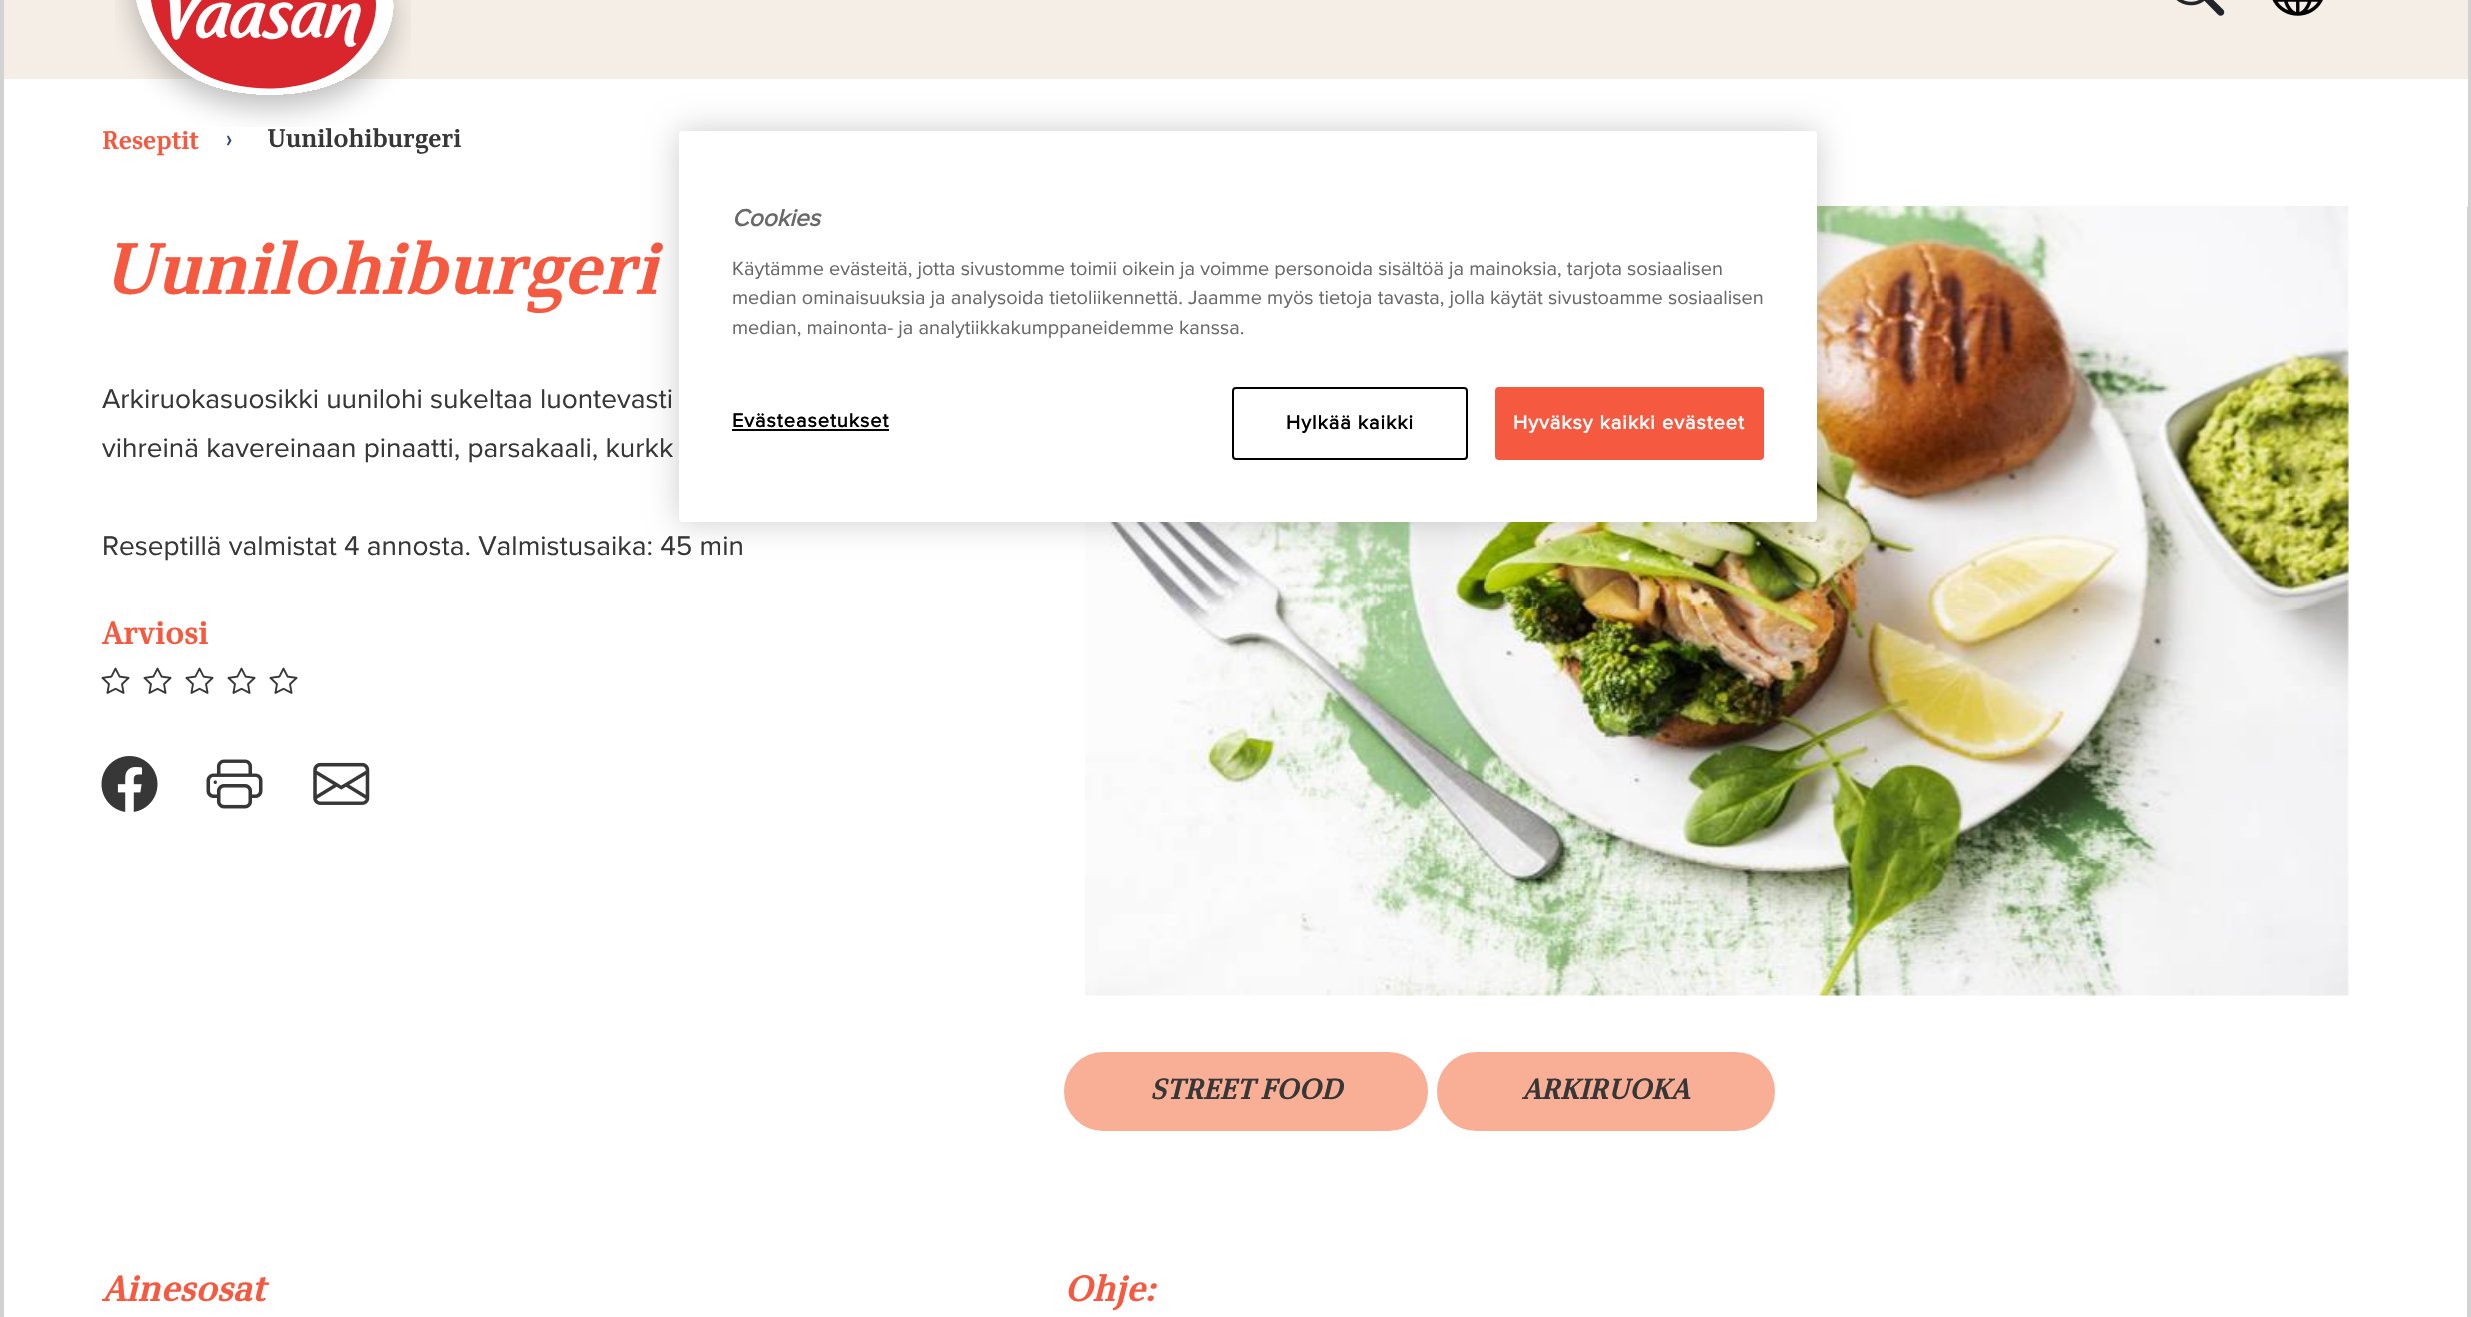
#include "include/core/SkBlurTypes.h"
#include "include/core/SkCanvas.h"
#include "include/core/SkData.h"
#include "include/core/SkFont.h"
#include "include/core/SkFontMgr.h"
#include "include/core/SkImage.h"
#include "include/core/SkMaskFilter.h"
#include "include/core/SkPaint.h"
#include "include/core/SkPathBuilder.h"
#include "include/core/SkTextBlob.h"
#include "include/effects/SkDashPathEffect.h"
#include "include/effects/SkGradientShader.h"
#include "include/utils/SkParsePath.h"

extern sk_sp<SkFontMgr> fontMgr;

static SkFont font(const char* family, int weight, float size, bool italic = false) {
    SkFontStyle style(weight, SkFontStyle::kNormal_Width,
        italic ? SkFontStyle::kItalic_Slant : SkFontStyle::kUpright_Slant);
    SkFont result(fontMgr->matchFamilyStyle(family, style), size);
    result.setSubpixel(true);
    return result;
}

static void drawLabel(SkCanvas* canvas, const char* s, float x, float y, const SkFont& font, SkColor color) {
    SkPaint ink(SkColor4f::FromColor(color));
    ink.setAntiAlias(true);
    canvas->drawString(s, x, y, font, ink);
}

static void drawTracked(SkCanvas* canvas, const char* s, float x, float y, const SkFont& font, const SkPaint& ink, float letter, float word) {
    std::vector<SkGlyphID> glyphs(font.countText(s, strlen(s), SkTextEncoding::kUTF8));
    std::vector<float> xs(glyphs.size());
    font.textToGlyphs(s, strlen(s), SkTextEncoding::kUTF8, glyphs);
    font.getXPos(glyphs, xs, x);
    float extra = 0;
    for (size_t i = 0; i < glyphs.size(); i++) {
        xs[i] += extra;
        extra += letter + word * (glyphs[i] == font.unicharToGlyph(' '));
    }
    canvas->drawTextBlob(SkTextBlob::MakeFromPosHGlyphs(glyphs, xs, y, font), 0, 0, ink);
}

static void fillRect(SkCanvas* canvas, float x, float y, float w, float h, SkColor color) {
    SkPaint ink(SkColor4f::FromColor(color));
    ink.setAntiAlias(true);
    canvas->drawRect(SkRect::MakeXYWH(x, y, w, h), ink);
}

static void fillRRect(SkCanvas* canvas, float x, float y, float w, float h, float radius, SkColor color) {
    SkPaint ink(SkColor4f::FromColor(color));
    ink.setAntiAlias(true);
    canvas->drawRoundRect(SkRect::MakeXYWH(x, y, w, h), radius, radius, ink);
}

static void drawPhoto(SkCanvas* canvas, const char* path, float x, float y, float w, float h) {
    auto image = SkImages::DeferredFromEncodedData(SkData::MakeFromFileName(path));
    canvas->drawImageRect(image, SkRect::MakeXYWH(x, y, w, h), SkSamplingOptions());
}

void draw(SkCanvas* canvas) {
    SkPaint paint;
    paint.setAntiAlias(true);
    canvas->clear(0xFFFFFFFF);
    paint.setStroke(true);
    paint.setStrokeWidth(4);
    paint.setColor(0xFFD2D2D2);
    canvas->drawRect(SkRect::MakeXYWH(2, -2, 2467, 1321), paint);
    fillRect(canvas, 4, 0, 2464, 79, 0xFFF5EEE7);
    drawPhoto(canvas, "assets/img1.png", 115, 0, 296, 127);
    drawPhoto(canvas, "assets/img2.png", 2176, 0, 49, 16);
    drawPhoto(canvas, "assets/img3.png", 2272, 0, 51, 16);
    fillRect(canvas, 2467, 79, 1, 128, 0xFFFFFFFF);
    SkFont font1 = font("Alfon", 700, 24.5f);
    drawLabel(canvas, "Reseptit", 102, 149, font1, 0xFFF55A41);
    drawPhoto(canvas, "assets/img4.png", 226, 135, 6, 11);
    drawLabel(canvas, "Uunilohiburgeri", 267, 147, font1, 0xFF373737);
    SkFont font2 = font("Alfon", 700, 70, true);
    drawLabel(canvas, "Uunilohiburgeri", 102, 294, font2, 0xFFF55A41);
    SkFont font3 = font("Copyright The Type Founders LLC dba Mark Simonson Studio", 400, 28);
    drawLabel(canvas, "Arkiruokasuosikki uunilohi sukeltaa luontevasti", 102, 408, font3, 0xFF373737);
    drawLabel(canvas, "vihreinä kavereinaan pinaatti, parsakaali, kurkk", 102, 457, font3, 0xFF373737);
    drawLabel(canvas, "Reseptillä valmistat 4 annosta. Valmistusaika: 45 min", 102, 555, font3, 0xFF373737);
    SkFont font4 = font("Alfon", 700, 31);
    drawLabel(canvas, "Arviosi", 102, 644, font4, 0xFFF55A41);
    drawPhoto(canvas, "assets/img5.png", 101, 667, 29, 27);
    drawPhoto(canvas, "assets/img5.png", 143, 667, 29, 27);
    drawPhoto(canvas, "assets/img5.png", 185, 667, 29, 27);
    drawPhoto(canvas, "assets/img5.png", 227, 667, 29, 27);
    drawPhoto(canvas, "assets/img5.png", 269, 667, 29, 27);
    drawPhoto(canvas, "assets/img6.png", 101, 756, 57, 56);
    drawPhoto(canvas, "assets/img7.png", 206, 759, 57, 50);
    drawPhoto(canvas, "assets/img8.png", 313, 762, 57, 43);
    drawPhoto(canvas, "assets/img9.png", 1085, 206, 1264, 790);
    paint.setStroke(false);
    paint.setColor(0xFFF8AF96);
    canvas->drawRoundRect(SkRect::MakeXYWH(1065, 1053, 362, 77), 38.5f, 38.5f, paint);
    paint.setStroke(true);
    paint.setStrokeWidth(2);
    canvas->drawRoundRect(SkRect::MakeXYWH(1065, 1053, 362, 77), 38.5f, 38.5f, paint);
    SkFont font5 = font("Alfon", 700, 28, true);
    drawLabel(canvas, "STREET FOOD", 1150, 1099, font5, 0xFF373737);
    paint.setStroke(false);
    canvas->drawRoundRect(SkRect::MakeXYWH(1438, 1053, 336, 77), 38.5f, 38.5f, paint);
    paint.setStroke(true);
    canvas->drawRoundRect(SkRect::MakeXYWH(1438, 1053, 336, 77), 38.5f, 38.5f, paint);
    drawLabel(canvas, "ARKIRUOKA", 1522, 1099, font5, 0xFF373737);
    SkFont font6 = font("Alfon", 700, 35, true);
    drawLabel(canvas, "Ainesosat", 102, 1301, font6, 0xFFF55A41);
    drawLabel(canvas, "Ohje:", 1064, 1301, font6, 0xFFF55A41);
    paint.setStroke(false);
    paint.setColor(0x33000000);
    paint.setMaskFilter(SkMaskFilter::MakeBlur(kNormal_SkBlurStyle, 16));
    canvas->drawRoundRect(SkRect::MakeXYWH(679, 131, 1138, 391), 4, 4, paint);
    paint.setMaskFilter(nullptr);
    fillRRect(canvas, 679, 131, 1138, 391, 4, 0xFFFFFFFF);
    SkFont font7 = font("Copyright The Type Founders LLC dba Mark Simonson Studio", 700, 24.5f, true);
    drawLabel(canvas, "Cookies", 732, 226, font7, 0xFF696969);
    SkFont font8 = font("Copyright The Type Founders LLC dba Mark Simonson Studio", 400, 19.92f);
    drawLabel(canvas, "Käytämme evästeitä, jotta sivustomme toimii oikein ja voimme personoida sisältöä ja mainoksia, tarjota sosiaalisen", 732, 275, font8, 0xFF696969);
    drawLabel(canvas, "median ominaisuuksia ja analysoida tietoliikennettä. Jaamme myös tietoja tavasta, jolla käytät sivustoamme sosiaalisen", 732, 304, font8, 0xFF696969);
    drawLabel(canvas, "median, mainonta- ja analytiikkakumppaneidemme kanssa.", 732, 334, font8, 0xFF696969);
    SkFont font9 = font("Copyright The Type Founders LLC dba Mark Simonson Studio", 700, 19.92f);
    paint.setColor(0xFF000000);
    drawTracked(canvas, "Evästeasetukset", 732, 427, font9, paint, 1, 0);
    fillRect(canvas, 732, 429, 157, 2, 0xFF000000);
    paint.setStroke(true);
    canvas->drawRoundRect(SkRect::MakeXYWH(1233, 388, 234, 71), 3, 3, paint);
    paint.setStroke(false);
    drawTracked(canvas, "Hylkää kaikki", 1286, 429, font9, paint, 1, 0);
    paint.setColor(0xFFF55A41);
    canvas->drawRoundRect(SkRect::MakeXYWH(1496, 388, 267, 71), 3, 3, paint);
    paint.setStroke(true);
    canvas->drawRoundRect(SkRect::MakeXYWH(1496, 388, 267, 71), 3, 3, paint);
    paint.setStroke(false);
    paint.setColor(0xFFFFFFFF);
    drawTracked(canvas, "Hyväksy kaikki evästeet", 1513, 429, font9, paint, 1, 0);
}
